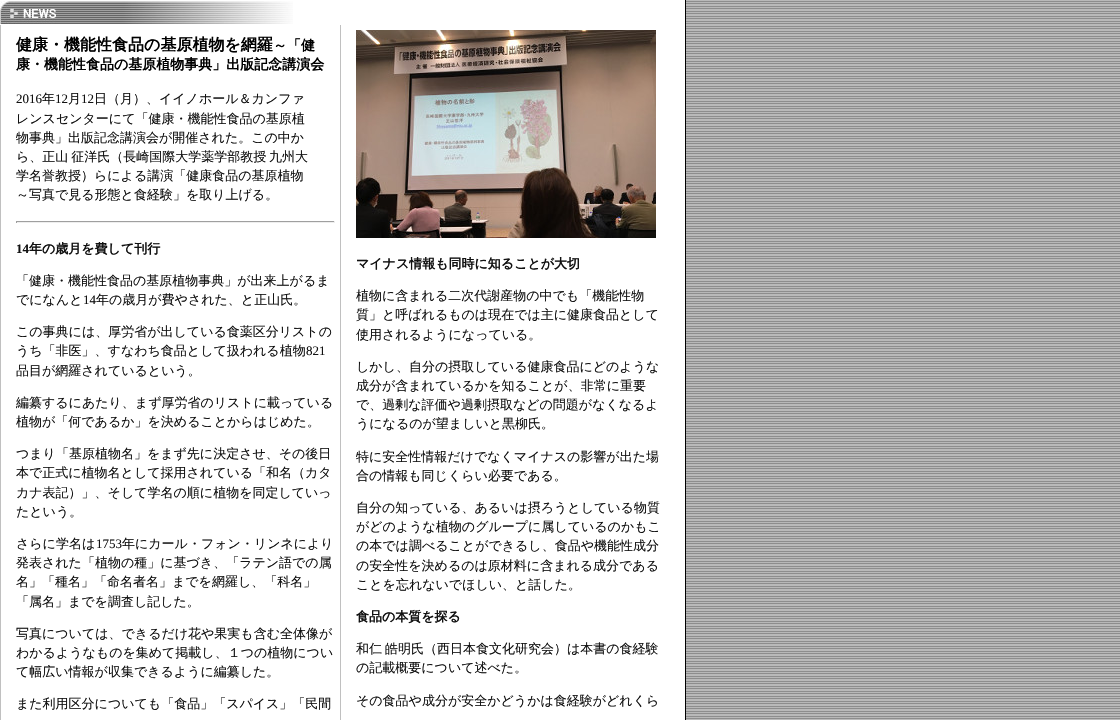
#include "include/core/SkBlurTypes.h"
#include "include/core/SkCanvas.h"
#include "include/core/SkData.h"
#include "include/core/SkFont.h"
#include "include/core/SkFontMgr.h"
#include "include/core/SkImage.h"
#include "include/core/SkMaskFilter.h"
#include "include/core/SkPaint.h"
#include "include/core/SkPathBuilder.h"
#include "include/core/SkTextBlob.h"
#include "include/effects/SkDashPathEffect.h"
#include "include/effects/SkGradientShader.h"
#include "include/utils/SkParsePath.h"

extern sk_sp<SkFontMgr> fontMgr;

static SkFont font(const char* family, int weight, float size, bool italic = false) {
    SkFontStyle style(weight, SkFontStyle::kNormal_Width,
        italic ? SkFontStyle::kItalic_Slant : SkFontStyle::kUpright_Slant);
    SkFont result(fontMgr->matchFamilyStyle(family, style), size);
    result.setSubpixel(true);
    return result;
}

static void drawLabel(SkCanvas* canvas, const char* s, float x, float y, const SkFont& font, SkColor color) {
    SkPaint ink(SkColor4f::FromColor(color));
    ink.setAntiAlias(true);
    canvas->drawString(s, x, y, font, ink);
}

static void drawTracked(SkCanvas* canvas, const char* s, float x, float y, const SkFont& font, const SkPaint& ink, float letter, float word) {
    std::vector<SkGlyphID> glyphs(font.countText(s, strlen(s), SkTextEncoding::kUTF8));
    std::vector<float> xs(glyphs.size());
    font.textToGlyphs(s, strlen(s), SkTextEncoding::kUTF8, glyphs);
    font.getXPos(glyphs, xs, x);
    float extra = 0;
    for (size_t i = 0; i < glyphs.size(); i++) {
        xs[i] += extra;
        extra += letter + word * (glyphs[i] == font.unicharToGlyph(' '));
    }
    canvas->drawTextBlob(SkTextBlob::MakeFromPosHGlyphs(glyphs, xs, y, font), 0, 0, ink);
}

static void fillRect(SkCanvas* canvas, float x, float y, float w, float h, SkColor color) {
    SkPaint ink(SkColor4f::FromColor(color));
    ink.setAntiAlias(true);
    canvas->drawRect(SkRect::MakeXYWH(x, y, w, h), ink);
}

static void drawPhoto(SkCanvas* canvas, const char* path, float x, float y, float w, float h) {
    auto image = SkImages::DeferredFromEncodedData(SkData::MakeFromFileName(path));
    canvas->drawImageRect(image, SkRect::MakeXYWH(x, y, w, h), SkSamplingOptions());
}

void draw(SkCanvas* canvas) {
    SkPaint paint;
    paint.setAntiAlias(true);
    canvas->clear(0xFFFFFFFF);
    drawPhoto(canvas, "assets/img1.png", 686, 0, 434, 720);
    drawPhoto(canvas, "assets/img2.png", 0, 1, 293, 23);
    fillRect(canvas, 0, 25, 341, 695, 0xFFC0C0C0);
    fillRect(canvas, 1, 25, 339, 695, 0xFFFFFFFF);
    SkFont font1 = font("WenQuanYi Zen Hei", 700, 16);
    drawLabel(canvas, "健康・機能性食品の基原植物を網羅", 16, 50, font1, 0xFF000000);
    SkFont font2 = font("WenQuanYi Zen Hei", 700, 14);
    drawLabel(canvas, "～「健", 273, 50, font2, 0xFF000000);
    drawLabel(canvas, "康・機能性食品の基原植物事典」出版記念講演会", 16, 69, font2, 0xFF000000);
    SkFont font3 = font("Liberation Serif", 400, 13);
    drawLabel(canvas, "2016", 16, 103, font3, 0xFF111111);
    SkFont font4 = font("WenQuanYi Zen Hei", 500, 13);
    drawLabel(canvas, "年", 42, 103, font4, 0xFF111111);
    drawLabel(canvas, "12", 55, 103, font3, 0xFF111111);
    drawLabel(canvas, "月", 68, 103, font4, 0xFF111111);
    drawLabel(canvas, "12", 81, 103, font3, 0xFF111111);
    drawLabel(canvas, "日（月）、イイノホール＆カンファ", 94, 103, font4, 0xFF111111);
    drawLabel(canvas, "レンスセンターにて「健康・機能性食品の基原植", 16, 123, font4, 0xFF111111);
    drawLabel(canvas, "物事典」出版記念講演会が開催された。この中か", 16, 142, font4, 0xFF111111);
    paint.setColor(0xFF111111);
    drawTracked(canvas, "ら、正山 征洋氏（長崎国際大学薬学部教授 九州大", 16, 161, font4, paint, 0, -1);
    drawLabel(canvas, "学名誉教授）らによる講演「健康食品の基原植物", 16, 180, font4, 0xFF111111);
    drawLabel(canvas, "～写真で見る形態と食経験」を取り上げる。", 16, 199, font4, 0xFF111111);
    fillRect(canvas, 16, 221, 319, 1, 0xFF9F9F9F);
    fillRect(canvas, 334, 221, 1, 2, 0xFFEEEEEE);
    fillRect(canvas, 16, 222, 319, 1, 0xFFEEEEEE);
    fillRect(canvas, 16, 221, 1, 2, 0xFF9F9F9F);
    SkFont font5 = font("Liberation Serif", 700, 13);
    drawLabel(canvas, "14", 16, 253, font5, 0xFF111111);
    SkFont font6 = font("WenQuanYi Zen Hei", 700, 13);
    drawLabel(canvas, "年の歳月を費して刊行", 29, 253, font6, 0xFF111111);
    drawLabel(canvas, "「健康・機能性食品の基原植物事典」が出来上がるま", 16, 285, font4, 0xFF111111);
    drawLabel(canvas, "でになんと", 16, 304, font4, 0xFF111111);
    drawLabel(canvas, "14", 83, 304, font3, 0xFF111111);
    drawLabel(canvas, "年の歳月が費やされた、と正山氏。", 96, 304, font4, 0xFF111111);
    drawLabel(canvas, "この事典には、厚労省が出している食薬区分リストの", 16, 336, font4, 0xFF111111);
    drawLabel(canvas, "うち「非医」、すなわち食品として扱われる植物", 16, 355, font4, 0xFF111111);
    drawLabel(canvas, "821", 306, 355, font3, 0xFF111111);
    drawLabel(canvas, "品目が網羅されているという。", 16, 375, font4, 0xFF111111);
    drawLabel(canvas, "編纂するにあたり、まず厚労省のリストに載っている", 16, 407, font4, 0xFF111111);
    drawLabel(canvas, "植物が「何であるか」を決めることからはじめた。", 16, 426, font4, 0xFF111111);
    drawLabel(canvas, "つまり「基原植物名」をまず先に決定させ、その後日", 16, 458, font4, 0xFF111111);
    drawLabel(canvas, "本で正式に植物名として採用されている「和名（カタ", 16, 477, font4, 0xFF111111);
    drawLabel(canvas, "カナ表記）」、そして学名の順に植物を同定していっ", 16, 497, font4, 0xFF111111);
    drawLabel(canvas, "たという。", 16, 516, font4, 0xFF111111);
    drawLabel(canvas, "さらに学名は", 16, 548, font4, 0xFF111111);
    drawLabel(canvas, "1753", 96, 548, font3, 0xFF111111);
    drawLabel(canvas, "年にカール・フォン・リンネにより", 122, 548, font4, 0xFF111111);
    drawLabel(canvas, "発表された「植物の種」に基づき、「ラテン語での属", 16, 567, font4, 0xFF111111);
    drawLabel(canvas, "名」「種名」「命名者名」までを網羅し、「科名」", 16, 586, font4, 0xFF111111);
    drawLabel(canvas, "「属名」までを調査し記した。", 16, 606, font4, 0xFF111111);
    drawLabel(canvas, "写真については、できるだけ花や果実も含む全体像が", 16, 638, font4, 0xFF111111);
    drawLabel(canvas, "わかるようなものを集めて掲載し、１つの植物につい", 16, 657, font4, 0xFF111111);
    drawLabel(canvas, "て幅広い情報が収集できるように編纂した。", 16, 676, font4, 0xFF111111);
    drawLabel(canvas, "また利用区分についても「食品」「スパイス」「民間", 16, 708, font4, 0xFF111111);
    drawPhoto(canvas, "assets/img3.png", 356, 30, 300, 208);
    drawLabel(canvas, "マイナス情報も同時に知ることが大切", 356, 268, font6, 0xFF111111);
    drawLabel(canvas, "植物に含まれる二次代謝産物の中でも「機能性物", 356, 300, font4, 0xFF111111);
    drawLabel(canvas, "質」と呼ばれるものは現在では主に健康食品として", 356, 319, font4, 0xFF111111);
    drawLabel(canvas, "使用されるようになっている。", 356, 339, font4, 0xFF111111);
    drawLabel(canvas, "しかし、自分の摂取している健康食品にどのような", 356, 371, font4, 0xFF111111);
    drawLabel(canvas, "成分が含まれているかを知ることが、非常に重要", 356, 390, font4, 0xFF111111);
    drawLabel(canvas, "で、過剰な評価や過剰摂取などの問題がなくなるよ", 356, 409, font4, 0xFF111111);
    drawLabel(canvas, "うになるのが望ましいと黒柳氏。", 356, 428, font4, 0xFF111111);
    drawLabel(canvas, "特に安全性情報だけでなくマイナスの影響が出た場", 356, 461, font4, 0xFF111111);
    drawLabel(canvas, "合の情報も同じくらい必要である。", 356, 480, font4, 0xFF111111);
    drawLabel(canvas, "自分の知っている、あるいは摂ろうとしている物質", 356, 512, font4, 0xFF111111);
    drawLabel(canvas, "がどのような植物のグループに属しているのかもこ", 356, 531, font4, 0xFF111111);
    drawLabel(canvas, "の本では調べることができるし、食品や機能性成分", 356, 550, font4, 0xFF111111);
    drawLabel(canvas, "の安全性を決めるのは原材料に含まれる成分である", 356, 570, font4, 0xFF111111);
    drawLabel(canvas, "ことを忘れないでほしい、と話した。", 356, 589, font4, 0xFF111111);
    drawLabel(canvas, "食品の本質を探る", 356, 621, font6, 0xFF111111);
    drawTracked(canvas, "和仁 皓明氏（西日本食文化研究会）は本書の食経験", 356, 653, font4, paint, 0, -1);
    drawLabel(canvas, "の記載概要について述べた。", 356, 672, font4, 0xFF111111);
    drawLabel(canvas, "その食品や成分が安全かどうかは食経験がどれくら", 356, 705, font4, 0xFF111111);
    fillRect(canvas, 685, 0, 1, 720, 0xFF000000);
}
